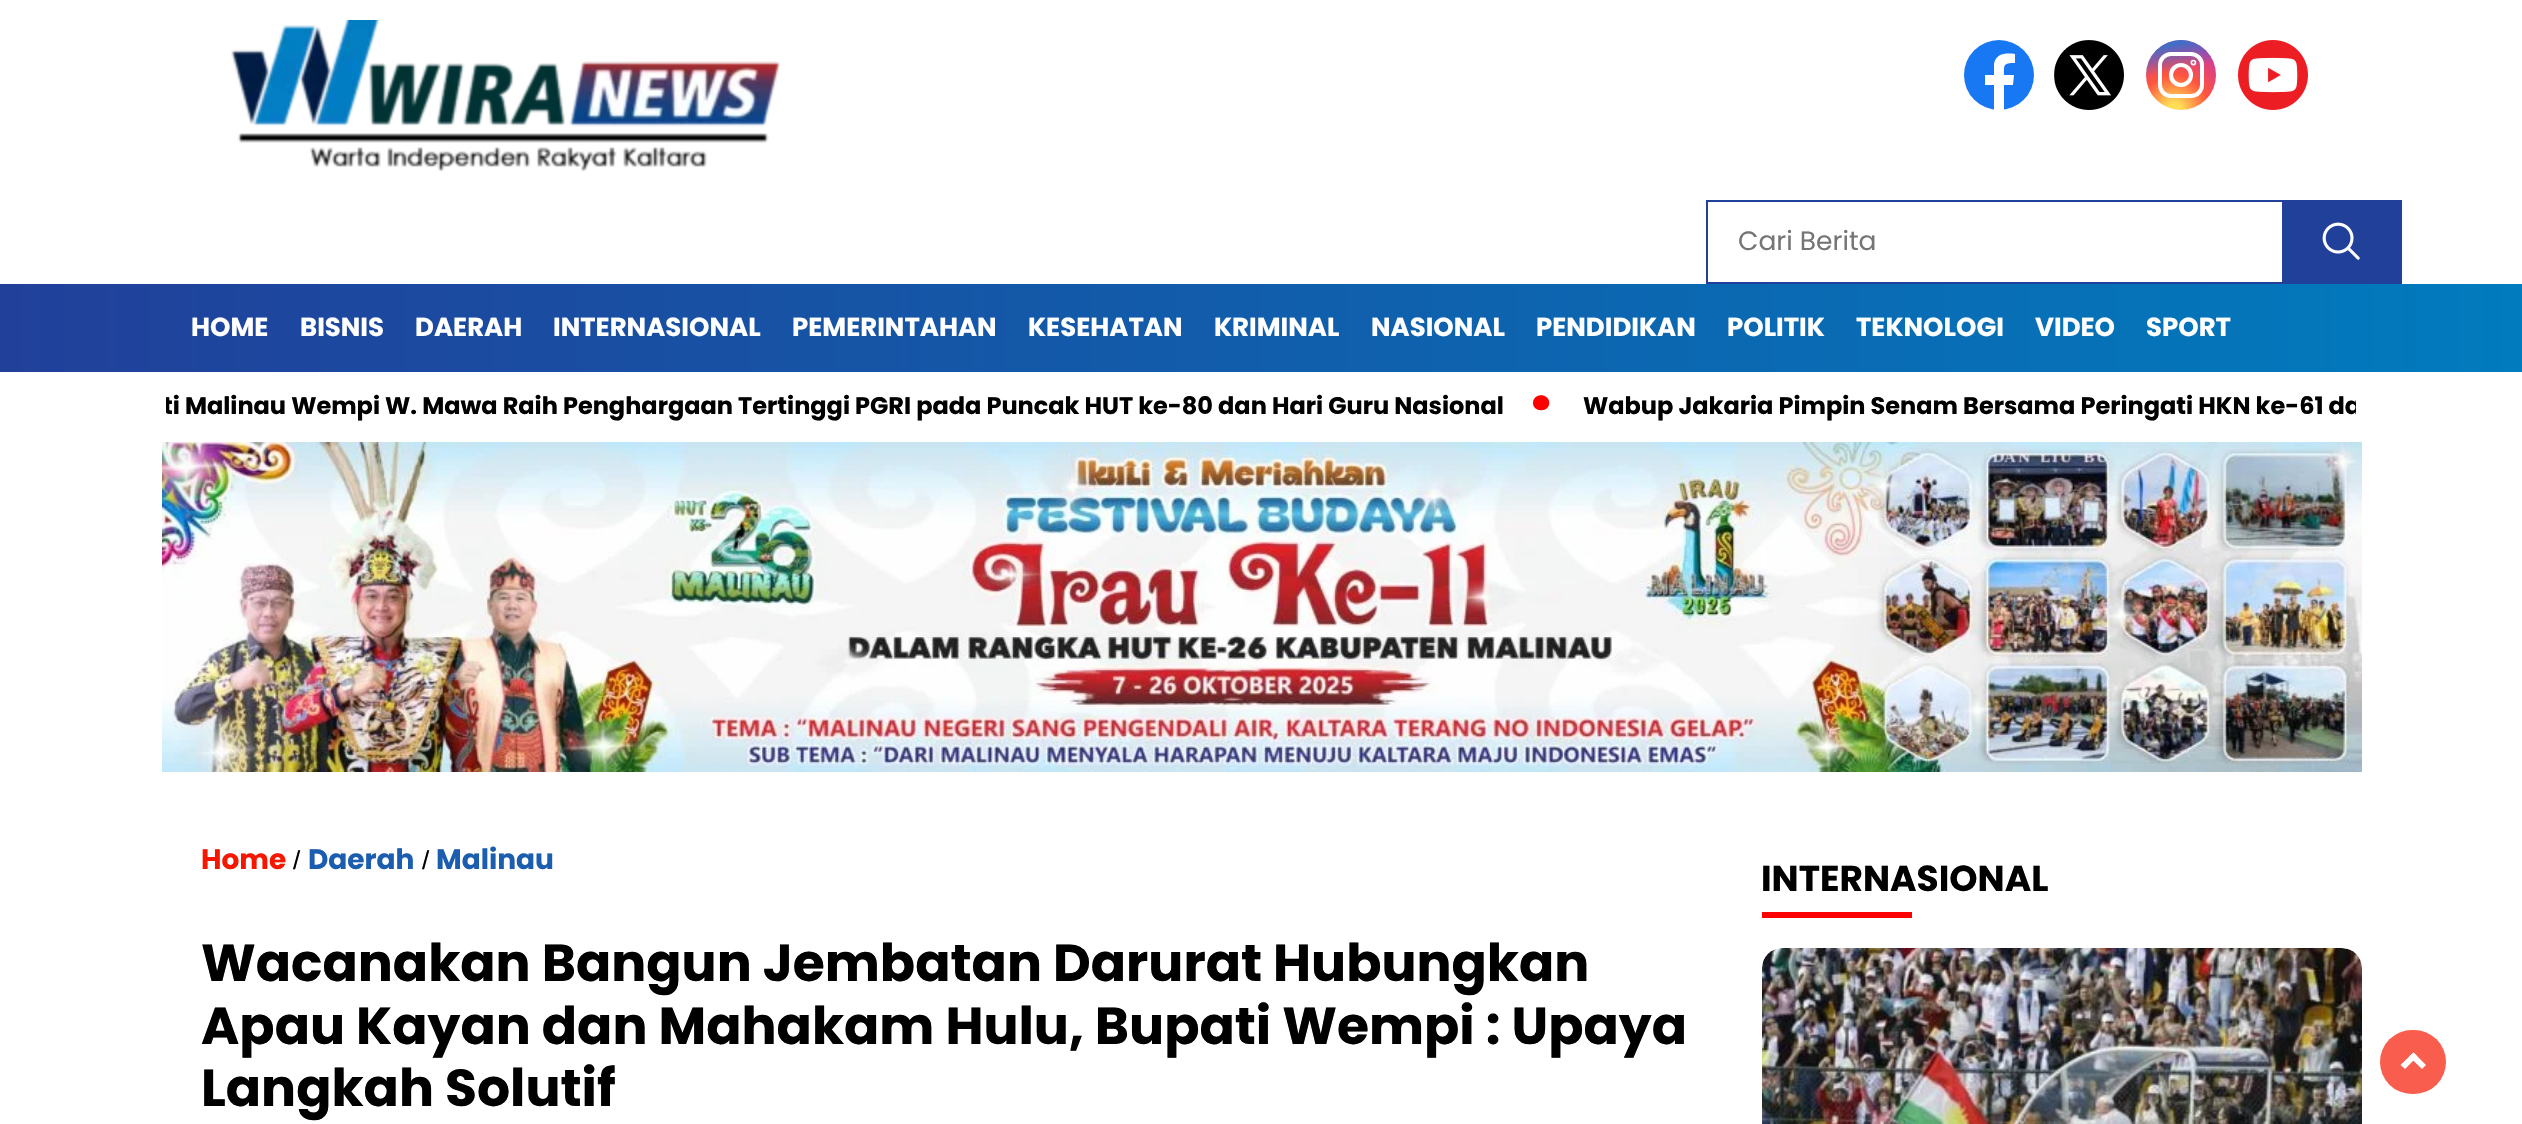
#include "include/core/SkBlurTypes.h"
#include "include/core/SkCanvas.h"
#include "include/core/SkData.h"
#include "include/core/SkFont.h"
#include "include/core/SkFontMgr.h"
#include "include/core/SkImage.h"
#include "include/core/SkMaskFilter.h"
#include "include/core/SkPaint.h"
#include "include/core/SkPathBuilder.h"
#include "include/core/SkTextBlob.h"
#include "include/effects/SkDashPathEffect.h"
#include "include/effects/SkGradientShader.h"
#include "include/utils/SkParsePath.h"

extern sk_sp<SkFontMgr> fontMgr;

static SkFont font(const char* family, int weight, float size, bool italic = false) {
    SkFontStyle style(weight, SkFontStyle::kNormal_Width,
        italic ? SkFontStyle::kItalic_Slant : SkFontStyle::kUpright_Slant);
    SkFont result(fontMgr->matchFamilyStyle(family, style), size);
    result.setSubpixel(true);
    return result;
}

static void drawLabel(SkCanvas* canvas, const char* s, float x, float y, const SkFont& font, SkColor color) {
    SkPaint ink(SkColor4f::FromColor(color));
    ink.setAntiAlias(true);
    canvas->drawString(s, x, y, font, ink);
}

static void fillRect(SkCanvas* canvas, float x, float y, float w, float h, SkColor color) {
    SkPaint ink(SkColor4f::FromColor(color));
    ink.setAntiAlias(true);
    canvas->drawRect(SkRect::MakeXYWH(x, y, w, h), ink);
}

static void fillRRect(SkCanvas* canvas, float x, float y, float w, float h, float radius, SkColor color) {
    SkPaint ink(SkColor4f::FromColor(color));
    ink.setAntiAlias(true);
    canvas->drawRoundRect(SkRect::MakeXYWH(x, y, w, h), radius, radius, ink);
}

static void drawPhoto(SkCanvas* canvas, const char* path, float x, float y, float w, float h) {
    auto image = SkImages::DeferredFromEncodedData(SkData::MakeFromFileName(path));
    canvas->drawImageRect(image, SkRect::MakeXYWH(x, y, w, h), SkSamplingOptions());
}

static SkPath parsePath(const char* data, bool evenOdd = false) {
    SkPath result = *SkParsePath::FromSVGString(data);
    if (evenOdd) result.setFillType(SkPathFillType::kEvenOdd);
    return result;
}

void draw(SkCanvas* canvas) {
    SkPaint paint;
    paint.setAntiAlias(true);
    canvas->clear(0xFFFFFFFF);
    drawPhoto(canvas, "assets/img1.png", 231, 20, 550, 152);
    paint.setColor(0xFF1877F2);
    canvas->drawCircle(1999, 75, 35, paint);
    paint.setColor(0xFFFFFFFF);
    canvas->drawPath(parsePath("M2013 85H2004V110C2001 110 1997 110 1994 110V85H1985V75H1994V64C1996 53 2006 53 2015 54V63C2003 63 2004 65 2004 75H2014Z"), paint);
    drawPhoto(canvas, "assets/img2.png", 2054, 40, 70, 70);
    {
        const SkColor colors[] = {0xFFFFDD55, 0xFFFF543E, 0xFFC837AB};
        const float stops[] = {0.1f, 0.5f, 1};
        paint.setShader(SkGradientShader::MakeRadial({2174, 110}, 70, colors, stops, 3, SkTileMode::kClamp));
        paint.setAlpha(255);
    }
    canvas->drawCircle(2181, 75, 35, paint);
    {
        const SkColor colors[] = {0xFF3771C8, 0x003771C8};
        const float stops[] = {0.1f, 0.5f};
        const SkPoint ends[] = {{2146, 40}, {2160, 110}};
        paint.setShader(SkGradientShader::MakeLinear(ends, colors, stops, 2, SkTileMode::kClamp));
        paint.setAlpha(255);
    }
    canvas->drawCircle(2181, 75, 35, paint);
    paint.setStroke(true);
    paint.setStrokeWidth(4);
    paint.setShader(nullptr);
    paint.setColor(0xFFFFFFFF);
    canvas->drawRoundRect(SkRect::MakeXYWH(2160, 54, 42, 42), 11, 11, paint);
    paint.setStrokeWidth(4.1f);
    canvas->drawCircle(2181, 75, 10, paint);
    canvas->drawCircle(2193.4f, 62.6f, 0.8f, paint);
    drawPhoto(canvas, "assets/img3.png", 2238, 40, 70, 70);
    paint.setStrokeWidth(2);
    paint.setColor(0xFF21409A);
    canvas->drawRect(SkRect::MakeXYWH(1707, 201, 576, 82), paint);
    SkFont font1 = font("Poppins", 400, 26.5f);
    drawLabel(canvas, "Cari Berita", 1738, 250, font1, 0xFF757575);
    fillRect(canvas, 2284, 200, 118, 84, 0xFF21409A);
    drawPhoto(canvas, "assets/img4.png", 2322, 222, 38, 38);
    paint.setStroke(false);
    {
        const SkColor colors[] = {0xFF21409A, 0xFF017BBD};
        const float stops[] = {0, 1};
        const SkPoint ends[] = {{0, 328}, {2522, 328}};
        paint.setShader(SkGradientShader::MakeLinear(ends, colors, stops, 2, SkTileMode::kClamp));
        paint.setAlpha(255);
    }
    canvas->drawRect(SkRect::MakeXYWH(0, 284, 2522, 88), paint);
    SkFont font2 = font("Poppins", 700, 26);
    drawLabel(canvas, "HOME", 191, 336, font2, 0xFFFFFFFF);
    drawLabel(canvas, "BISNIS", 300, 336, font2, 0xFFFFFFFF);
    drawLabel(canvas, "DAERAH", 415, 336, font2, 0xFFFFFFFF);
    drawLabel(canvas, "INTERNASIONAL", 553, 336, font2, 0xFFFFFFFF);
    drawLabel(canvas, "PEMERINTAHAN", 792, 336, font2, 0xFFFFFFFF);
    drawLabel(canvas, "KESEHATAN", 1028, 336, font2, 0xFFFFFFFF);
    drawLabel(canvas, "KRIMINAL", 1214, 336, font2, 0xFFFFFFFF);
    drawLabel(canvas, "NASIONAL", 1371, 336, font2, 0xFFFFFFFF);
    drawLabel(canvas, "PENDIDIKAN", 1536, 336, font2, 0xFFFFFFFF);
    drawLabel(canvas, "POLITIK", 1727, 336, font2, 0xFFFFFFFF);
    drawLabel(canvas, "TEKNOLOGI", 1856, 336, font2, 0xFFFFFFFF);
    drawLabel(canvas, "VIDEO", 2035, 336, font2, 0xFFFFFFFF);
    drawLabel(canvas, "SPORT", 2146, 336, font2, 0xFFFFFFFF);
    canvas->save();
    canvas->clipRect(SkRect::MakeXYWH(166, 372, 2190, 60));
    SkFont font3 = font("Poppins", 700, 24);
    drawLabel(canvas, "ti Malinau Wempi W. Mawa Raih Penghargaan Tertinggi PGRI pada Puncak HUT ke-80 dan Hari Guru Nasional", 163, 414, font3, 0xFF000000);
    canvas->restore();
    SkFont font4 = font("Poppins", 700, 80);
    drawLabel(canvas, "·", 1529, 428, font4, 0xFFFF0000);
    canvas->save();
    canvas->clipRect(SkRect::MakeXYWH(166, 372, 2190, 60));
    drawLabel(canvas, "Wabup Jakaria Pimpin Senam Bersama Peringati HKN ke-61 da", 1583, 414, font3, 0xFF000000);
    canvas->restore();
    drawPhoto(canvas, "assets/img5.png", 162, 442, 2200, 330);
    SkFont font5 = font("Poppins", 700, 28);
    drawLabel(canvas, "Home", 201, 869, font5, 0xFFF51700);
    SkFont font6 = font("Liberation Sans", 400, 26);
    drawLabel(canvas, "/", 293, 869, font6, 0xFF000000);
    drawLabel(canvas, "Daerah", 308, 869, font5, 0xFF1B5DAF);
    drawLabel(canvas, "/", 422, 869, font6, 0xFF000000);
    drawLabel(canvas, "Malinau", 436, 869, font5, 0xFF1B5DAF);
    SkFont font7 = font("Poppins", 700, 52);
    drawLabel(canvas, "Wacanakan Bangun Jembatan Darurat Hubungkan", 201, 981, font7, 0xFF000000);
    drawLabel(canvas, "Apau Kayan dan Mahakam Hulu, Bupati Wempi : Upaya", 201, 1044, font7, 0xFF000000);
    drawLabel(canvas, "Langkah Solutif", 201, 1106, font7, 0xFF000000);
    SkFont font8 = font("Poppins", 700, 36);
    drawLabel(canvas, "INTERNASIONAL", 1761, 891, font8, 0xFF000000);
    fillRect(canvas, 1762, 912, 150, 6, 0xFFFF0000);
    drawPhoto(canvas, "assets/img6.png", 1762, 948, 600, 176);
    fillRRect(canvas, 2380, 1030, 66, 64, 32, 0xFFF85D4D);
    paint.setShader(nullptr);
    paint.setColor(0xFFFFFFFF);
    canvas->drawPath(parsePath("M2405 1069L2400.5 1065L2413.5 1052.5L2417.5 1056.5Z"), paint);
    canvas->drawPath(parsePath("M2422 1069L2409 1056.5L2413.5 1052.5L2426 1065Z"), paint);
}
